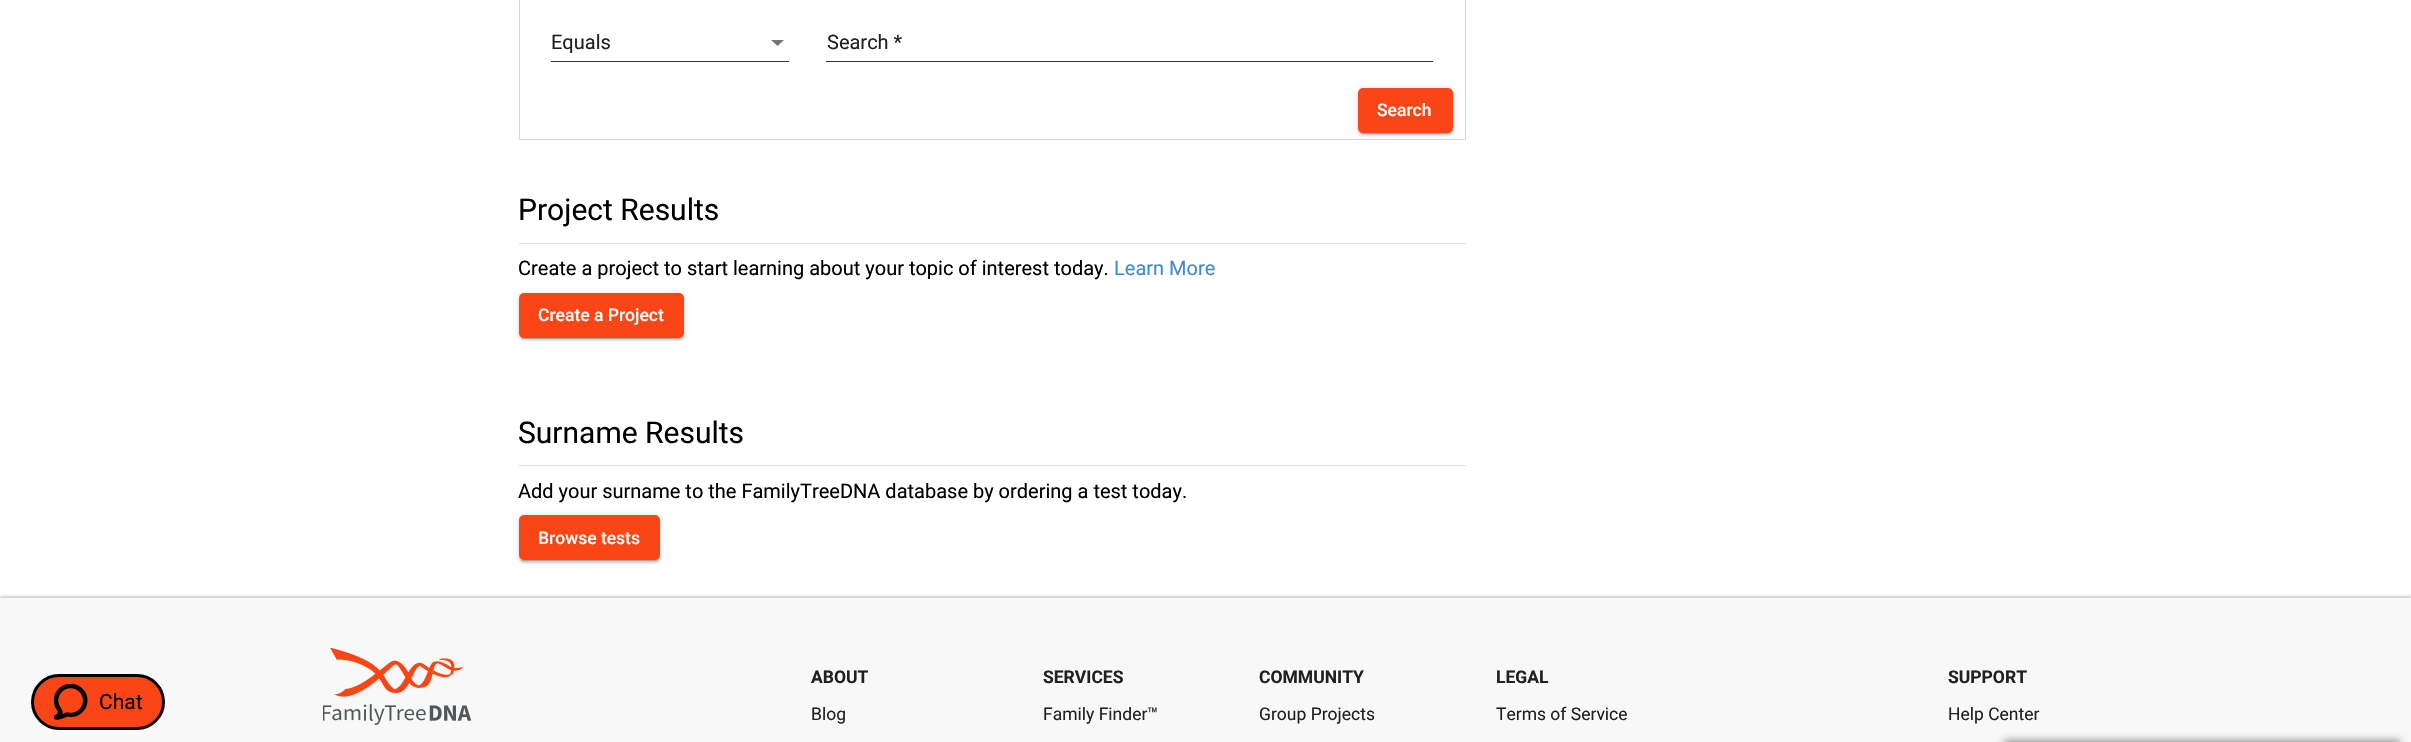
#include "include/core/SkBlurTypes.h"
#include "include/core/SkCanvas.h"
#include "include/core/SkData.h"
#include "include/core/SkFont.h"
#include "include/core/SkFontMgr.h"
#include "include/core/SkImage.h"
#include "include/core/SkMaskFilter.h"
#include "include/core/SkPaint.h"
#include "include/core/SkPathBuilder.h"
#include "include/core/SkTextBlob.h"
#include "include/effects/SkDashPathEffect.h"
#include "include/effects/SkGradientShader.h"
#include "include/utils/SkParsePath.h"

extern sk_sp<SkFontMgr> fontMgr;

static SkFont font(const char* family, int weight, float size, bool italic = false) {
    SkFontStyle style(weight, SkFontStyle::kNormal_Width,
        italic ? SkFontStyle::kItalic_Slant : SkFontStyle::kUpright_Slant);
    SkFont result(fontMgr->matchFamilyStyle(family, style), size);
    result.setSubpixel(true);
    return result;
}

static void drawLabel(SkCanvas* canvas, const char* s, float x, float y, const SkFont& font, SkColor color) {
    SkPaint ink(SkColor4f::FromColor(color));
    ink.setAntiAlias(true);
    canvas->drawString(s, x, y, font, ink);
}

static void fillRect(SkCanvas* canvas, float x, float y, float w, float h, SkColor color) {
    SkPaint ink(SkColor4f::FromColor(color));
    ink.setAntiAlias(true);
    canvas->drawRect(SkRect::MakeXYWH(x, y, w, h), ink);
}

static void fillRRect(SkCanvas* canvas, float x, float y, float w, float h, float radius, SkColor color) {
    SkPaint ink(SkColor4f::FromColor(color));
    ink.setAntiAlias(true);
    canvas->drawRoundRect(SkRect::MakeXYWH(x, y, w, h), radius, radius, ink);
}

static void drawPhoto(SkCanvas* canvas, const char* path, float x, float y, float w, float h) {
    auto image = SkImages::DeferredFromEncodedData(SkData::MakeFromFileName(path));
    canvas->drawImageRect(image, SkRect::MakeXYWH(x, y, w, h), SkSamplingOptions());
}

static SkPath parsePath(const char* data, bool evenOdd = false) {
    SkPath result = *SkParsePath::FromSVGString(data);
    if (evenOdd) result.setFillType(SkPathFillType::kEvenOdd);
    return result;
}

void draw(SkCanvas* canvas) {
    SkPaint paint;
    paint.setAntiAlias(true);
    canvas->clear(0xFFFFFFFF);
    paint.setStroke(true);
    paint.setStrokeWidth(1);
    paint.setColor(0xFFD9D9D9);
    canvas->drawRect(SkRect::MakeXYWH(519.5f, -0.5f, 946, 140), paint);
    SkFont font1 = font("Roboto", 400, 20);
    drawLabel(canvas, "Equals", 551, 49, font1, 0xFF212121);
    paint.setStroke(false);
    paint.setColor(0xFF757575);
    canvas->drawPath(parsePath("M771 40H784L777.5 46Z"), paint);
    fillRect(canvas, 551, 61, 238, 1, 0xFF333333);
    drawLabel(canvas, "Search *", 827, 49, font1, 0xFF212121);
    fillRect(canvas, 826, 61, 607, 1, 0xFF333333);
    paint.setColor(0x1F000000);
    paint.setMaskFilter(SkMaskFilter::MakeBlur(kNormal_SkBlurStyle, 3));
    canvas->drawRoundRect(SkRect::MakeXYWH(1358, 89, 95, 45), 5, 5, paint);
    paint.setMaskFilter(nullptr);
    paint.setColor(0x24000000);
    paint.setMaskFilter(SkMaskFilter::MakeBlur(kNormal_SkBlurStyle, 1));
    canvas->drawRoundRect(SkRect::MakeXYWH(1358, 90, 95, 45), 5, 5, paint);
    paint.setMaskFilter(nullptr);
    paint.setColor(0x33000000);
    paint.setMaskFilter(SkMaskFilter::MakeBlur(kNormal_SkBlurStyle, 0.5f));
    canvas->drawRoundRect(SkRect::MakeXYWH(1360, 94, 90, 40), 2.5f, 2.5f, paint);
    paint.setMaskFilter(nullptr);
    fillRRect(canvas, 1358, 88, 95, 45, 5, 0xFFFA4616);
    SkFont font2 = font("Roboto", 500, 17.5f);
    drawLabel(canvas, "Search", 1377, 116, font2, 0xFFFFFFFF);
    SkFont font3 = font("Roboto", 400, 30);
    drawLabel(canvas, "Project Results", 518, 220, font3, 0xFF000000);
    fillRect(canvas, 519, 243, 947, 1, 0xFFE0E0E0);
    drawLabel(canvas, "Create a project to start learning about your topic of interest today.", 518, 275, font1, 0xFF000000);
    drawLabel(canvas, "Learn More", 1114, 275, font1, 0xFF428BCA);
    paint.setColor(0x1F000000);
    paint.setMaskFilter(SkMaskFilter::MakeBlur(kNormal_SkBlurStyle, 3));
    canvas->drawRoundRect(SkRect::MakeXYWH(519, 294, 165, 45), 5, 5, paint);
    paint.setMaskFilter(nullptr);
    paint.setColor(0x24000000);
    paint.setMaskFilter(SkMaskFilter::MakeBlur(kNormal_SkBlurStyle, 1));
    canvas->drawRoundRect(SkRect::MakeXYWH(519, 295, 165, 45), 5, 5, paint);
    paint.setMaskFilter(nullptr);
    paint.setColor(0x33000000);
    paint.setMaskFilter(SkMaskFilter::MakeBlur(kNormal_SkBlurStyle, 0.5f));
    canvas->drawRoundRect(SkRect::MakeXYWH(521, 299, 160, 40), 2.5f, 2.5f, paint);
    paint.setMaskFilter(nullptr);
    fillRRect(canvas, 519, 293, 165, 45, 5, 0xFFFA4616);
    drawLabel(canvas, "Create a Project", 538, 321, font2, 0xFFFFFFFF);
    drawLabel(canvas, "Surname Results", 518, 443, font3, 0xFF000000);
    fillRect(canvas, 519, 465, 947, 1, 0xFFE0E0E0);
    drawLabel(canvas, "Add your surname to the FamilyTreeDNA database by ordering a test today.", 518, 498, font1, 0xFF000000);
    paint.setColor(0x1F000000);
    paint.setMaskFilter(SkMaskFilter::MakeBlur(kNormal_SkBlurStyle, 3));
    canvas->drawRoundRect(SkRect::MakeXYWH(519, 516, 141, 45), 5, 5, paint);
    paint.setMaskFilter(nullptr);
    paint.setColor(0x24000000);
    paint.setMaskFilter(SkMaskFilter::MakeBlur(kNormal_SkBlurStyle, 1));
    canvas->drawRoundRect(SkRect::MakeXYWH(519, 518, 141, 45), 5, 5, paint);
    paint.setMaskFilter(nullptr);
    paint.setColor(0x33000000);
    paint.setMaskFilter(SkMaskFilter::MakeBlur(kNormal_SkBlurStyle, 0.5f));
    canvas->drawRoundRect(SkRect::MakeXYWH(521, 521, 137, 40), 2.5f, 2.5f, paint);
    paint.setMaskFilter(nullptr);
    fillRRect(canvas, 519, 515, 141, 45, 5, 0xFFFA4616);
    drawLabel(canvas, "Browse tests", 538, 544, font2, 0xFFFFFFFF);
    paint.setColor(0x36212121);
    paint.setMaskFilter(SkMaskFilter::MakeBlur(kNormal_SkBlurStyle, 1));
    canvas->drawRect(SkRect::MakeXYWH(0, 596, 2411, 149), paint);
    paint.setMaskFilter(nullptr);
    fillRect(canvas, 0, 598, 2411, 144, 0xFFF8F8F8);
    paint.setColor(0xFFFA4616);
    canvas->drawRoundRect(SkRect::MakeXYWH(32.5f, 675.5f, 131, 53), 26.5f, 26.5f, paint);
    paint.setStroke(true);
    paint.setStrokeWidth(3);
    paint.setColor(0xFF000000);
    canvas->drawRoundRect(SkRect::MakeXYWH(32.5f, 675.5f, 131, 53), 26.5f, 26.5f, paint);
    drawPhoto(canvas, "assets/img1.png", 54, 684, 34, 36);
    SkFont font4 = font("Roboto", 400, 21);
    drawLabel(canvas, "Chat", 99, 709, font4, 0xFF000000);
    drawPhoto(canvas, "assets/img2.png", 323, 648, 148, 77);
    SkFont font5 = font("Roboto", 700, 17.5f);
    drawLabel(canvas, "ABOUT", 811, 683, font5, 0xFF212121);
    SkFont font6 = font("Roboto", 400, 17.5f);
    drawLabel(canvas, "Blog", 811, 720, font6, 0xFF212121);
    drawLabel(canvas, "SERVICES", 1043, 683, font5, 0xFF212121);
    drawLabel(canvas, "Family Finder™", 1043, 720, font6, 0xFF212121);
    drawLabel(canvas, "COMMUNITY", 1259, 683, font5, 0xFF212121);
    drawLabel(canvas, "Group Projects", 1259, 720, font6, 0xFF212121);
    drawLabel(canvas, "LEGAL", 1496, 683, font5, 0xFF212121);
    drawLabel(canvas, "Terms of Service", 1496, 720, font6, 0xFF212121);
    drawLabel(canvas, "SUPPORT", 1948, 683, font5, 0xFF212121);
    drawLabel(canvas, "Help Center", 1948, 720, font6, 0xFF212121);
    paint.setStroke(false);
    paint.setColor(0xFF808080);
    paint.setMaskFilter(SkMaskFilter::MakeBlur(kNormal_SkBlurStyle, 4.5f));
    canvas->drawRect(SkRect::MakeXYWH(2004, 741, 396, 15), paint);
    paint.setMaskFilter(nullptr);
}
